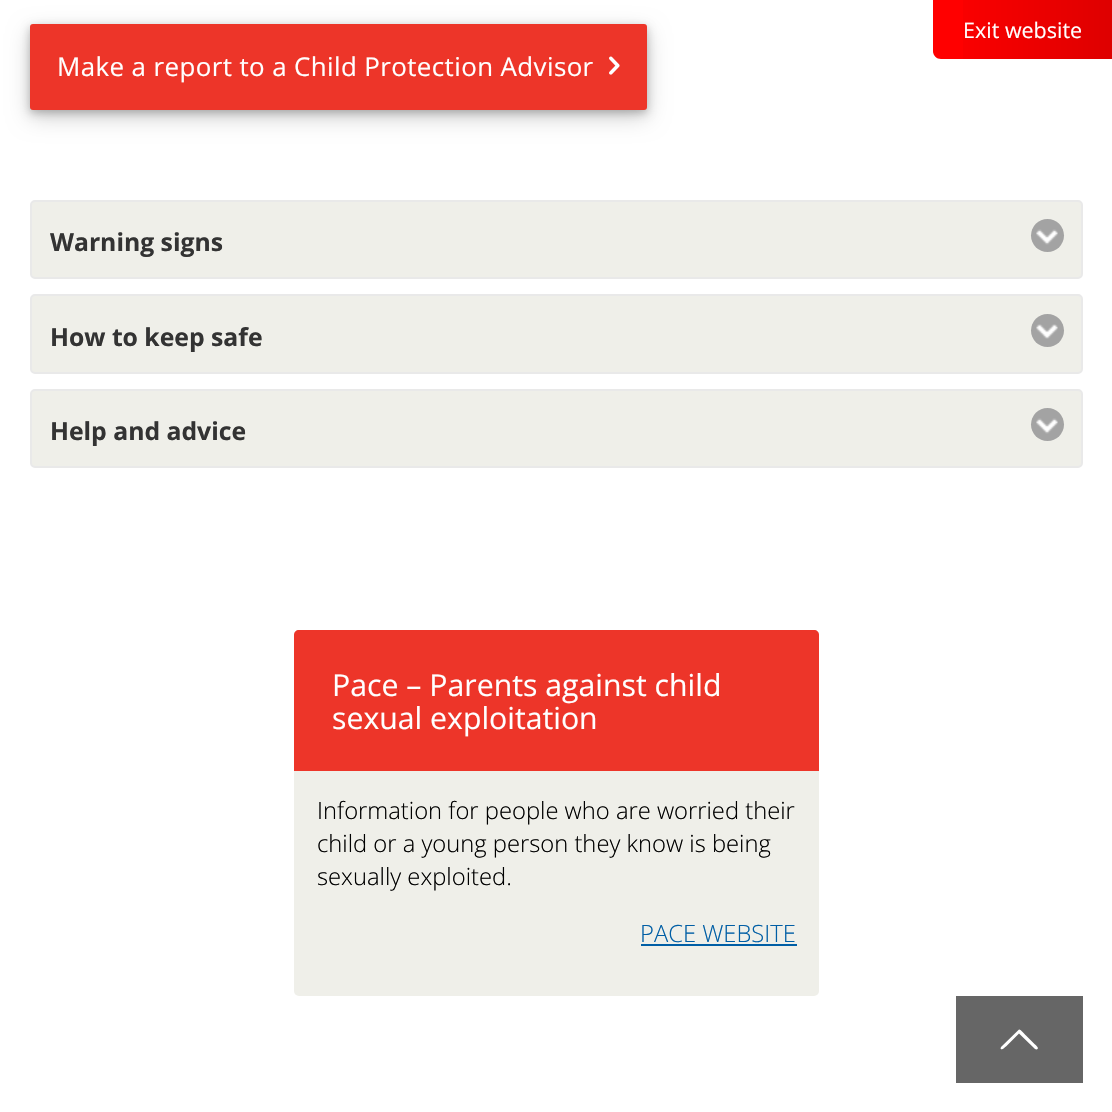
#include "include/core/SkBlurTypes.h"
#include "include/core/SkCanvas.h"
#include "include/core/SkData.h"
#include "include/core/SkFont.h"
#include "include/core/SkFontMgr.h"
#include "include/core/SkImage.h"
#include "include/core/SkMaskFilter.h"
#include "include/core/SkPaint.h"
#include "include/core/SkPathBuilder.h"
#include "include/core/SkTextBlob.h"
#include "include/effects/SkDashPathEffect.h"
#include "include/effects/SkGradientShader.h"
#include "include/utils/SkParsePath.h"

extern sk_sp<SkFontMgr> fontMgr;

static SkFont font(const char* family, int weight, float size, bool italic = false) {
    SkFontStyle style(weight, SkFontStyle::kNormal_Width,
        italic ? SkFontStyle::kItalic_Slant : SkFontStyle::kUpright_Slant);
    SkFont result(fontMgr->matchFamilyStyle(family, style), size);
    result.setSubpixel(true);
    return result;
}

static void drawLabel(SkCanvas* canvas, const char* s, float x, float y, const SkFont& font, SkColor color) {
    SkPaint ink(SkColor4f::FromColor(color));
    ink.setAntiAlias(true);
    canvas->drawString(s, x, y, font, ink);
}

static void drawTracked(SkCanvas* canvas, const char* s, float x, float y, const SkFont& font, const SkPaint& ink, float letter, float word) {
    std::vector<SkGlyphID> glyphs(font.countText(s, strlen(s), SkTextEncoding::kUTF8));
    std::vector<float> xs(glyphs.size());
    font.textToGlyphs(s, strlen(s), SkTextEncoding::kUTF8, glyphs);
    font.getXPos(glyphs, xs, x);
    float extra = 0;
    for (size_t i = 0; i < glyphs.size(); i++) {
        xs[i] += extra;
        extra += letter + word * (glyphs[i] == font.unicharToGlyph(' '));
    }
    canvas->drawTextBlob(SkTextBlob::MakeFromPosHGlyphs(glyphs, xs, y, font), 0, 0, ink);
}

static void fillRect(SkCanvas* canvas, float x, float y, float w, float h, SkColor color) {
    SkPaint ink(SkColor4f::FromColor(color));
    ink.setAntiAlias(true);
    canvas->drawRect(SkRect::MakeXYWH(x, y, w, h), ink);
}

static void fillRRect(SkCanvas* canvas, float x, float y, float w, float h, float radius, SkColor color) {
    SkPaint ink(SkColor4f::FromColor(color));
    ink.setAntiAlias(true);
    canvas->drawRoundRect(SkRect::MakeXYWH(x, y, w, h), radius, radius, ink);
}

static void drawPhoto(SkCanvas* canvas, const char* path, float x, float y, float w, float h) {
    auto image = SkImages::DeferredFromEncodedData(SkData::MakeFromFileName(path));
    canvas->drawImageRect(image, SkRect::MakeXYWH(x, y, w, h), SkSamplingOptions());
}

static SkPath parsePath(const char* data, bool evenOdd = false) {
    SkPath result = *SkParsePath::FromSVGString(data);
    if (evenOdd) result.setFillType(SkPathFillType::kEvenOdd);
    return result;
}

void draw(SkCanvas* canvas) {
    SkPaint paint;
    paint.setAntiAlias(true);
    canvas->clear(0xFFFFFFFF);
    paint.setColor(0xFFFF0000);
    canvas->drawPath(parsePath("M933 0H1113V59H941C936.5 59 933 55.5 933 51Z"), paint);
    {
        const SkColor colors[] = {0x00000000, 0x21000000};
        const float stops[] = {0, 1};
        const SkPoint ends[] = {{933, 29}, {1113, 29}};
        paint.setShader(SkGradientShader::MakeLinear(ends, colors, stops, 2, SkTileMode::kClamp));
        paint.setAlpha(255);
    }
    canvas->drawRect(SkRect::MakeXYWH(963, 0, 149, 59), paint);
    SkFont font1 = font("Open Sans", 400, 21.5f);
    drawLabel(canvas, "Exit website", 963, 38, font1, 0xFFFFFFFF);
    paint.setShader(nullptr);
    paint.setColor(0x30000000);
    paint.setMaskFilter(SkMaskFilter::MakeBlur(kNormal_SkBlurStyle, 11));
    canvas->drawRoundRect(SkRect::MakeXYWH(30, 32, 617, 85), 3, 3, paint);
    paint.setMaskFilter(nullptr);
    paint.setColor(0x3B000000);
    paint.setMaskFilter(SkMaskFilter::MakeBlur(kNormal_SkBlurStyle, 4));
    canvas->drawRoundRect(SkRect::MakeXYWH(30, 27, 617, 86), 3, 3, paint);
    paint.setMaskFilter(nullptr);
    fillRRect(canvas, 30, 24, 617, 86, 3, 0xFFED3529);
    SkFont font2 = font("Open Sans", 400, 25.9f);
    paint.setColor(0xFFFFFFFF);
    drawTracked(canvas, "Make a report to a Child Protection Advisor", 57, 76, font2, paint, 0.4f, 0);
    drawPhoto(canvas, "assets/img1.png", 609, 56, 11, 19);
    paint.setColor(0xFFEFEFE9);
    canvas->drawRoundRect(SkRect::MakeXYWH(31, 201, 1051, 77), 4, 4, paint);
    paint.setStroke(true);
    paint.setStrokeWidth(2);
    paint.setColor(0xFFE9E9E9);
    canvas->drawRoundRect(SkRect::MakeXYWH(31, 201, 1051, 77), 4, 4, paint);
    SkFont font3 = font("Open Sans", 700, 24.75f);
    drawLabel(canvas, "Warning signs", 50, 251, font3, 0xFF333333);
    paint.setStroke(false);
    paint.setColor(0xFFA3A3A3);
    canvas->drawCircle(1047.5f, 235.5f, 16.5f, paint);
    drawPhoto(canvas, "assets/img2.png", 1036, 229, 22, 16);
    paint.setColor(0xFFEFEFE9);
    canvas->drawRoundRect(SkRect::MakeXYWH(31, 295, 1051, 78), 4, 4, paint);
    paint.setStroke(true);
    paint.setColor(0xFFE9E9E9);
    canvas->drawRoundRect(SkRect::MakeXYWH(31, 295, 1051, 78), 4, 4, paint);
    drawLabel(canvas, "How to keep safe", 50, 346, font3, 0xFF333333);
    paint.setStroke(false);
    paint.setColor(0xFFA3A3A3);
    canvas->drawCircle(1047.5f, 330.5f, 16.5f, paint);
    drawPhoto(canvas, "assets/img3.png", 1036, 324, 22, 15);
    paint.setColor(0xFFEFEFE9);
    canvas->drawRoundRect(SkRect::MakeXYWH(31, 390, 1051, 77), 4, 4, paint);
    paint.setStroke(true);
    paint.setColor(0xFFE9E9E9);
    canvas->drawRoundRect(SkRect::MakeXYWH(31, 390, 1051, 77), 4, 4, paint);
    drawLabel(canvas, "Help and advice", 50, 440, font3, 0xFF333333);
    paint.setStroke(false);
    paint.setColor(0xFFA3A3A3);
    canvas->drawCircle(1047.5f, 424.5f, 16.5f, paint);
    drawPhoto(canvas, "assets/img2.png", 1036, 418, 22, 16);
    fillRRect(canvas, 294, 630, 525, 366, 5, 0xFFEFEFE9);
    paint.setColor(0xFFED3529);
    canvas->drawPath(parsePath("M299 630H814C817 630 819 632 819 635V771H294V635C294 632 296 630 299 630Z"), paint);
    SkFont font4 = font("Open Sans", 400, 30.25f);
    drawLabel(canvas, "Pace – Parents against child", 332, 696, font4, 0xFFFFFFFF);
    drawLabel(canvas, "sexual exploitation", 332, 729, font4, 0xFFFFFFFF);
    SkFont font5 = font("Open Sans", 300, 23.75f);
    drawLabel(canvas, "Information for people who are worried their", 317, 819, font5, 0xFF000000);
    drawLabel(canvas, "child or a young person they know is being", 317, 852, font5, 0xFF000000);
    drawLabel(canvas, "sexually exploited.", 317, 885, font5, 0xFF000000);
    drawLabel(canvas, "PACE WEBSITE", 640, 942, font5, 0xFF005EA5);
    fillRect(canvas, 641, 944, 156, 2, 0xFF005EA5);
    fillRect(canvas, 956, 996, 127, 87, 0xFF666666);
    paint.setColor(0xFFFFFFFF);
    canvas->drawPath(parsePath("M1035 1049L1019 1033.5L1006 1046.5C1005 1047 1002 1051 1000.5 1048.5L1001 1047L1019 1029.5C1020.5 1029 1025 1034.5 1026 1035.5L1034.5 1044C1034.5 1044 1040.5 1048.5 1036.5 1049.5Z"), paint);
}
